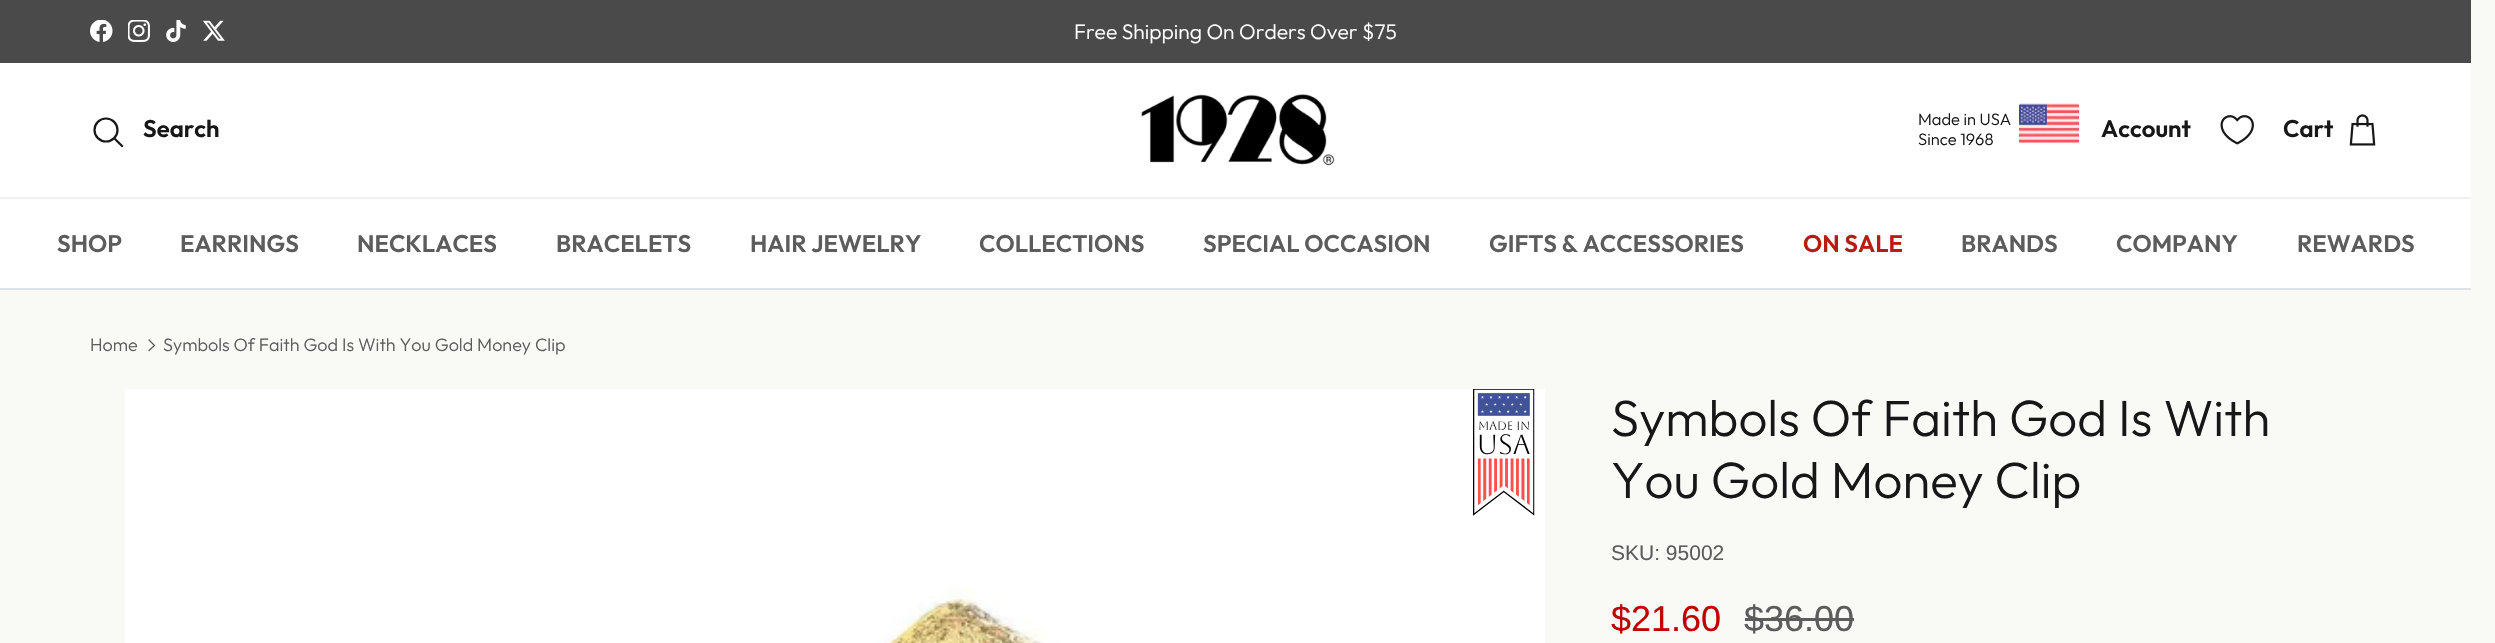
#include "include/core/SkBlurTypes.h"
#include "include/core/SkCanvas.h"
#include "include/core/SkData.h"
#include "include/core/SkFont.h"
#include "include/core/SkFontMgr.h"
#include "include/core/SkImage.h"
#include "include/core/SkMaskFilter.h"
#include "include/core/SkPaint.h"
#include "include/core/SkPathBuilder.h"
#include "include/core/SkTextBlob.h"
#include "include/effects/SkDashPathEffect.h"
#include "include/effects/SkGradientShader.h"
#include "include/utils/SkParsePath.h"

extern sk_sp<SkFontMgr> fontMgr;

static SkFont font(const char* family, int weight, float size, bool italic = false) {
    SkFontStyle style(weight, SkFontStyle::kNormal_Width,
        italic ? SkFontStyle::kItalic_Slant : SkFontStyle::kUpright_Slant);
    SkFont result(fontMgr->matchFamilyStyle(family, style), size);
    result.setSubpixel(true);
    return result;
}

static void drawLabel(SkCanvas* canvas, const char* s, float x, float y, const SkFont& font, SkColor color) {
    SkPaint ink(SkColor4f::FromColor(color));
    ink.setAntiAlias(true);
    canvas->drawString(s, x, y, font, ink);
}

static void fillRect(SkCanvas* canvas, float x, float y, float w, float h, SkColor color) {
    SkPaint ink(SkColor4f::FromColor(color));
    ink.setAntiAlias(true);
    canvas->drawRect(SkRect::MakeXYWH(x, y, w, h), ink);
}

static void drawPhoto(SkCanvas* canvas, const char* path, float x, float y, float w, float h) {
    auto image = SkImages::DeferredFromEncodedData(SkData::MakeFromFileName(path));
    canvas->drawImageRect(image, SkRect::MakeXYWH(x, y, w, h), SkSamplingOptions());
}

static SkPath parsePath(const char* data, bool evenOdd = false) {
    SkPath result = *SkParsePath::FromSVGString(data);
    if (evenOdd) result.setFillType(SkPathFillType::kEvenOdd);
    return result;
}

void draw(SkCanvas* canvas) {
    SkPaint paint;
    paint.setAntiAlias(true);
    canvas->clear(0xFFF9F9F6);
    fillRect(canvas, 0, 0, 2471, 63, 0xFF4A4A4A);
    drawPhoto(canvas, "assets/img1.png", 90, 20, 23, 22);
    drawPhoto(canvas, "assets/img2.png", 128, 20, 22, 22);
    drawPhoto(canvas, "assets/img3.png", 166, 20, 20, 22);
    drawPhoto(canvas, "assets/img4.png", 203, 20, 22, 21);
    SkFont font1 = font("Outfit", 300, 21);
    drawLabel(canvas, "Free Shipping On Orders Over $75", 1074, 39, font1, 0xFFFFFFFF);
    fillRect(canvas, 0, 63, 2471, 134, 0xFFFFFFFF);
    fillRect(canvas, 0, 197, 2471, 2, 0xFFF0F0F0);
    paint.setStroke(true);
    paint.setStrokeWidth(2.2f);
    paint.setColor(0xFF171717);
    canvas->drawCircle(106, 130, 11.5f, paint);
    SkFont font2 = font("Outfit", 600, 24);
    drawLabel(canvas, "Search", 143, 137, font2, 0xFF171717);
    paint.setStrokeCap(SkPaint::kSquare_Cap);
    canvas->drawPath(parsePath("M115.5 139.5L122 146"), paint);
    drawPhoto(canvas, "assets/img5.png", 1141, 94, 194, 72);
    SkFont font3 = font("Outfit", 300, 16.5f);
    drawLabel(canvas, "Made in USA", 1918, 125, font3, 0xFF171717);
    drawLabel(canvas, "Since 1968", 1918, 145, font3, 0xFF171717);
    drawPhoto(canvas, "assets/img6.png", 2019, 103, 60, 40);
    drawLabel(canvas, "Account", 2101, 137, font2, 0xFF171717);
    drawPhoto(canvas, "assets/img7.png", 2220, 115, 34, 30);
    drawLabel(canvas, "Cart", 2283, 137, font2, 0xFF171717);
    drawPhoto(canvas, "assets/img8.png", 2349, 114, 27, 32);
    fillRect(canvas, 0, 288, 2471, 2, 0xFFDFE3E8);
    fillRect(canvas, 0, 199, 2471, 89, 0xFFFFFFFF);
    drawLabel(canvas, "SHOP", 57, 252, font2, 0xFF5C5C5C);
    drawLabel(canvas, "EARRINGS", 180, 252, font2, 0xFF5C5C5C);
    drawLabel(canvas, "NECKLACES", 357, 252, font2, 0xFF5C5C5C);
    drawLabel(canvas, "BRACELETS", 556, 252, font2, 0xFF5C5C5C);
    drawLabel(canvas, "HAIR JEWELRY", 750, 252, font2, 0xFF5C5C5C);
    drawLabel(canvas, "COLLECTIONS", 979, 252, font2, 0xFF5C5C5C);
    drawLabel(canvas, "SPECIAL OCCASION", 1203, 252, font2, 0xFF5C5C5C);
    drawLabel(canvas, "GIFTS & ACCESSORIES", 1489, 252, font2, 0xFF5C5C5C);
    drawLabel(canvas, "ON SALE", 1803, 252, font2, 0xFFB61D0F);
    drawLabel(canvas, "BRANDS", 1961, 252, font2, 0xFF5C5C5C);
    drawLabel(canvas, "COMPANY", 2116, 252, font2, 0xFF5C5C5C);
    drawLabel(canvas, "REWARDS", 2297, 252, font2, 0xFF5C5C5C);
    SkFont font4 = font("Outfit", 300, 18);
    drawLabel(canvas, "Home", 90, 351, font4, 0xFF5C5C5C);
    paint.setStrokeWidth(1.3f);
    paint.setStrokeCap(SkPaint::kRound_Cap);
    paint.setStrokeJoin(SkPaint::kRound_Join);
    paint.setColor(0xFF5C5C5C);
    canvas->drawPath(parsePath("M149 350.5L154.5 345.5L149 340"), paint);
    drawLabel(canvas, "Symbols Of Faith God Is With You Gold Money Clip", 163, 351, font4, 0xFF5C5C5C);
    drawPhoto(canvas, "assets/img9.png", 125, 389, 1420, 254);
    drawPhoto(canvas, "assets/img10.png", 1473, 389, 62, 127);
    SkFont font5 = font("Outfit", 300, 51);
    drawLabel(canvas, "Symbols Of Faith God Is With", 1611, 436, font5, 0xFF171717);
    drawLabel(canvas, "You Gold Money Clip", 1611, 498, font5, 0xFF171717);
    SkFont font6 = font("Liberation Sans", 400, 21);
    drawLabel(canvas, "SKU: 95002", 1611, 560, font6, 0xFF5C5C5C);
    SkFont font7 = font("Liberation Sans", 400, 36);
    drawLabel(canvas, "$21.60", 1611, 631, font7, 0xFFC20000);
    drawLabel(canvas, "$36.00", 1744, 631, font7, 0xFF5C5C5C);
    fillRect(canvas, 1745, 618, 109, 3, 0xFF5C5C5C);
}
